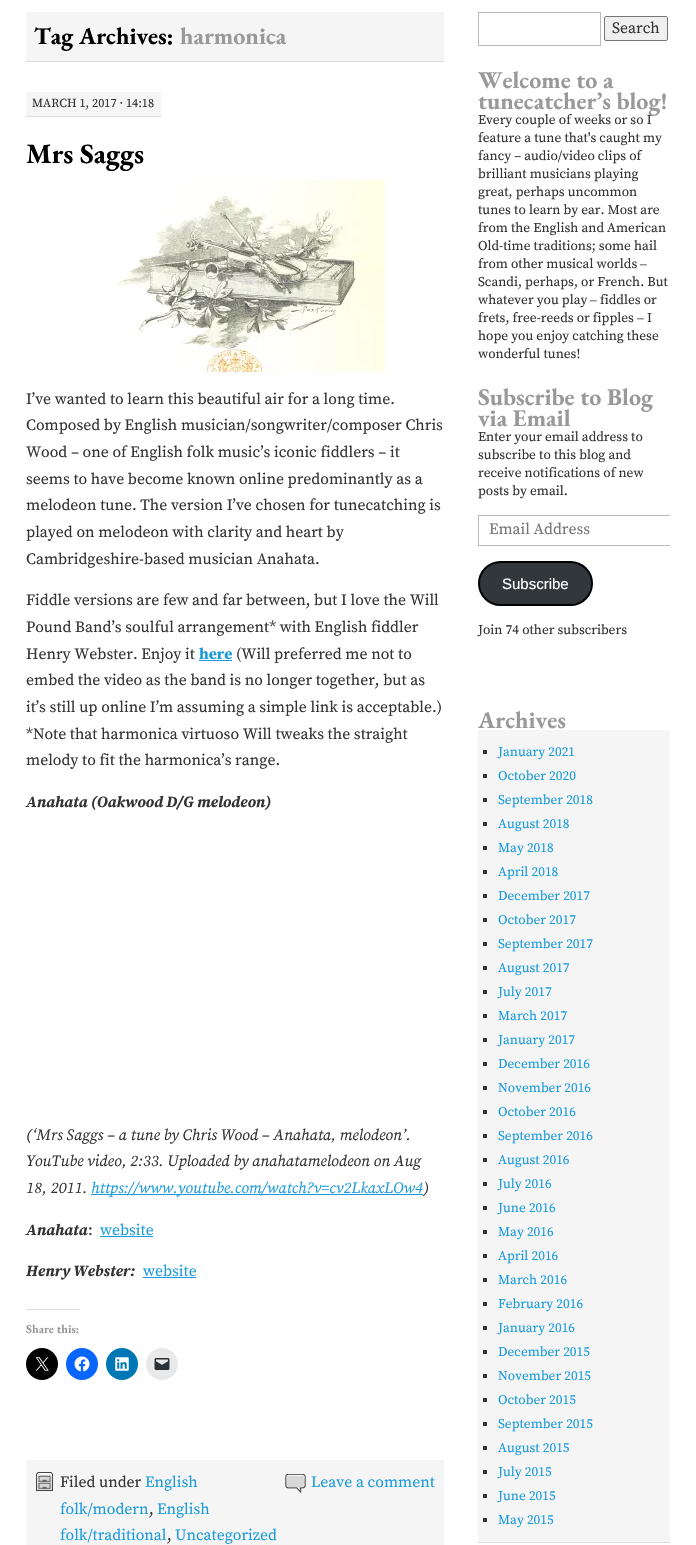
#include "include/core/SkBlurTypes.h"
#include "include/core/SkCanvas.h"
#include "include/core/SkData.h"
#include "include/core/SkFont.h"
#include "include/core/SkFontMgr.h"
#include "include/core/SkImage.h"
#include "include/core/SkMaskFilter.h"
#include "include/core/SkPaint.h"
#include "include/core/SkPathBuilder.h"
#include "include/core/SkTextBlob.h"
#include "include/effects/SkDashPathEffect.h"
#include "include/effects/SkGradientShader.h"
#include "include/utils/SkParsePath.h"

extern sk_sp<SkFontMgr> fontMgr;

static SkFont font(const char* family, int weight, float size, bool italic = false) {
    SkFontStyle style(weight, SkFontStyle::kNormal_Width,
        italic ? SkFontStyle::kItalic_Slant : SkFontStyle::kUpright_Slant);
    SkFont result(fontMgr->matchFamilyStyle(family, style), size);
    result.setSubpixel(true);
    return result;
}

static void drawLabel(SkCanvas* canvas, const char* s, float x, float y, const SkFont& font, SkColor color) {
    SkPaint ink(SkColor4f::FromColor(color));
    ink.setAntiAlias(true);
    canvas->drawString(s, x, y, font, ink);
}

static void fillRect(SkCanvas* canvas, float x, float y, float w, float h, SkColor color) {
    SkPaint ink(SkColor4f::FromColor(color));
    ink.setAntiAlias(true);
    canvas->drawRect(SkRect::MakeXYWH(x, y, w, h), ink);
}

static void drawPhoto(SkCanvas* canvas, const char* path, float x, float y, float w, float h) {
    auto image = SkImages::DeferredFromEncodedData(SkData::MakeFromFileName(path));
    canvas->drawImageRect(image, SkRect::MakeXYWH(x, y, w, h), SkSamplingOptions());
}

void draw(SkCanvas* canvas) {
    SkPaint paint;
    paint.setAntiAlias(true);
    canvas->clear(0xFFFFFFFF);
    fillRect(canvas, 26, 12, 418, 49, 0xFFF5F5F5);
    fillRect(canvas, 26, 61, 418, 1, 0xFFDDDDDD);
    SkFont font1 = font("EB Garamond", 700, 24);
    drawLabel(canvas, "Tag Archives:", 34, 44, font1, 0xFF000000);
    drawLabel(canvas, "harmonica", 180, 44, font1, 0xFF999999);
    fillRect(canvas, 26, 92, 135, 24, 0xFFF5F5F5);
    fillRect(canvas, 26, 116, 135, 1, 0xFFDDDDDD);
    SkFont font2 = font("Source Serif Pro", 400, 12.25f);
    drawLabel(canvas, "MARCH 1, 2017 · 14:18", 32, 107, font2, 0xFF333333);
    SkFont font3 = font("EB Garamond", 700, 28);
    drawLabel(canvas, "Mrs Saggs", 26, 163, font3, 0xFF000000);
    drawPhoto(canvas, "assets/img1.png", 115, 180, 270, 192);
    SkFont font4 = font("Source Serif Pro", 400, 15.7f);
    drawLabel(canvas, "I’ve wanted to learn this beautiful air for a long time.", 26, 404, font4, 0xFF333333);
    drawLabel(canvas, "Composed by English musician/songwriter/composer Chris", 26, 430, font4, 0xFF333333);
    drawLabel(canvas, "Wood – one of English folk music’s iconic fiddlers – it", 26, 457, font4, 0xFF333333);
    drawLabel(canvas, "seems to have become known online predominantly as a", 26, 484, font4, 0xFF333333);
    drawLabel(canvas, "melodeon tune. The version I’ve chosen for tunecatching is", 26, 510, font4, 0xFF333333);
    drawLabel(canvas, "played on melodeon with clarity and heart by", 26, 537, font4, 0xFF333333);
    drawLabel(canvas, "Cambridgeshire-based musician Anahata.", 26, 564, font4, 0xFF333333);
    drawLabel(canvas, "Fiddle versions are few and far between, but I love the Will", 26, 605, font4, 0xFF333333);
    drawLabel(canvas, "Pound Band’s soulful arrangement* with English fiddler", 26, 632, font4, 0xFF333333);
    drawLabel(canvas, "Henry Webster. Enjoy it", 26, 659, font4, 0xFF333333);
    SkFont font5 = font("Source Serif Pro", 700, 15.7f);
    drawLabel(canvas, "here", 199, 659, font5, 0xFF1C9BDC);
    fillRect(canvas, 199, 660, 33, 1, 0xFF1C9BDC);
    drawLabel(canvas, "(Will preferred me not to", 236, 659, font4, 0xFF333333);
    drawLabel(canvas, "embed the video as the band is no longer together, but as", 26, 685, font4, 0xFF333333);
    drawLabel(canvas, "it’s still up online I’m assuming a simple link is acceptable.)", 26, 712, font4, 0xFF333333);
    drawLabel(canvas, "*Note that harmonica virtuoso Will tweaks the straight", 26, 739, font4, 0xFF333333);
    drawLabel(canvas, "melody to fit the harmonica’s range.", 26, 765, font4, 0xFF333333);
    SkFont font6 = font("Source Serif Pro", 700, 15.7f, true);
    drawLabel(canvas, "Anahata (Oakwood D/G melodeon)", 26, 807, font6, 0xFF333333);
    SkFont font7 = font("Source Serif Pro", 400, 15.7f, true);
    drawLabel(canvas, "(‘Mrs Saggs – a tune by Chris Wood – Anahata, melodeon’.", 26, 1140, font7, 0xFF333333);
    drawLabel(canvas, "YouTube video, 2:33. Uploaded by anahatamelodeon on Aug", 26, 1166, font7, 0xFF333333);
    drawLabel(canvas, "18, 2011.", 26, 1193, font7, 0xFF333333);
    fillRect(canvas, 91, 1194, 332, 1, 0xFF1C9BDC);
    drawLabel(canvas, "https://www.youtube.com/watch?v=cv2LkaxLOw4", 91, 1193, font7, 0xFF1C9BDC);
    drawLabel(canvas, ")", 423, 1193, font7, 0xFF333333);
    drawLabel(canvas, "Anahata", 26, 1235, font6, 0xFF333333);
    drawLabel(canvas, ":", 88, 1235, font4, 0xFF333333);
    drawLabel(canvas, "website", 100, 1235, font4, 0xFF1C9BDC);
    fillRect(canvas, 100, 1236, 53, 1, 0xFF1C9BDC);
    drawLabel(canvas, "Henry Webster:", 26, 1276, font6, 0xFF333333);
    drawLabel(canvas, "website", 143, 1276, font4, 0xFF1C9BDC);
    fillRect(canvas, 143, 1277, 53, 1, 0xFF1C9BDC);
    fillRect(canvas, 26, 1309, 54, 1, 0xFFDCDCDE);
    SkFont font8 = font("EB Garamond", 700, 12);
    drawLabel(canvas, "Share this:", 26, 1333, font8, 0xFF999999);
    paint.setColor(0xFF000000);
    canvas->drawCircle(42, 1364, 16, paint);
    drawPhoto(canvas, "assets/img2.png", 35, 1357, 14, 14);
    paint.setColor(0xFF0866FF);
    canvas->drawCircle(82, 1364, 16, paint);
    drawPhoto(canvas, "assets/img3.png", 74, 1356, 16, 16);
    paint.setColor(0xFF0077B5);
    canvas->drawCircle(122, 1364, 16, paint);
    drawPhoto(canvas, "assets/img4.png", 115, 1357, 14, 14);
    paint.setColor(0xFFE9E9E9);
    canvas->drawCircle(162, 1364, 16, paint);
    drawPhoto(canvas, "assets/img5.png", 154, 1358, 16, 12);
    fillRect(canvas, 26, 1460, 418, 85, 0xFFF5F5F5);
    drawPhoto(canvas, "assets/img6.png", 36, 1472, 17, 19);
    drawLabel(canvas, "Filed under", 60, 1487, font4, 0xFF333333);
    drawLabel(canvas, "English", 145, 1487, font4, 0xFF1C9BDC);
    drawLabel(canvas, "folk/modern", 60, 1514, font4, 0xFF1C9BDC);
    drawLabel(canvas, ",", 149, 1514, font4, 0xFF333333);
    drawLabel(canvas, "English", 157, 1514, font4, 0xFF1C9BDC);
    drawLabel(canvas, "folk/traditional", 60, 1540, font4, 0xFF1C9BDC);
    drawLabel(canvas, ",", 167, 1540, font4, 0xFF333333);
    drawLabel(canvas, "Uncategorized", 175, 1540, font4, 0xFF1C9BDC);
    drawPhoto(canvas, "assets/img7.png", 285, 1474, 21, 19);
    drawLabel(canvas, "Leave a comment", 311, 1487, font4, 0xFF1C9BDC);
    paint.setStroke(true);
    paint.setStrokeWidth(1);
    paint.setColor(0xFFBBBBBB);
    canvas->drawRect(SkRect::MakeXYWH(478.5f, 12.5f, 122, 33), paint);
    paint.setStroke(false);
    paint.setColor(0xFFEFEFEF);
    canvas->drawRoundRect(SkRect::MakeXYWH(604.5f, 16.5f, 63, 24), 1.5f, 1.5f, paint);
    paint.setStroke(true);
    paint.setColor(0xFF767676);
    canvas->drawRoundRect(SkRect::MakeXYWH(604.5f, 16.5f, 63, 24), 1.5f, 1.5f, paint);
    drawLabel(canvas, "Search", 612, 33, font4, 0xFF333333);
    drawLabel(canvas, "Welcome to a", 478, 88, font1, 0xFF999999);
    drawLabel(canvas, "tunecatcher’s blog!", 478, 109, font1, 0xFF999999);
    SkFont font9 = font("Source Serif Pro", 400, 13.4f);
    drawLabel(canvas, "Every couple of weeks or so I", 478, 124, font9, 0xFF333333);
    drawLabel(canvas, "feature a tune that's caught my", 478, 142, font9, 0xFF333333);
    drawLabel(canvas, "fancy – audio/video clips of", 478, 160, font9, 0xFF333333);
    drawLabel(canvas, "brilliant musicians playing", 478, 178, font9, 0xFF333333);
    drawLabel(canvas, "great, perhaps uncommon", 478, 196, font9, 0xFF333333);
    drawLabel(canvas, "tunes to learn by ear. Most are", 478, 214, font9, 0xFF333333);
    drawLabel(canvas, "from the English and American", 478, 232, font9, 0xFF333333);
    drawLabel(canvas, "Old-time traditions; some hail", 478, 250, font9, 0xFF333333);
    drawLabel(canvas, "from other musical worlds", 478, 268, font9, 0xFF333333);
    SkFont font10 = font("Liberation Serif", 400, 13.4f);
    drawLabel(canvas, "‒", 640, 268, font10, 0xFF333333);
    drawLabel(canvas, "Scandi, perhaps, or French. But", 478, 286, font9, 0xFF333333);
    drawLabel(canvas, "whatever you play", 478, 304, font9, 0xFF333333);
    drawLabel(canvas, "‒", 590, 304, font10, 0xFF333333);
    drawLabel(canvas, "fiddles or", 600, 304, font9, 0xFF333333);
    drawLabel(canvas, "frets, free-reeds or fipples", 478, 322, font9, 0xFF333333);
    drawLabel(canvas, "‒", 637, 322, font10, 0xFF333333);
    drawLabel(canvas, "I", 647, 322, font9, 0xFF333333);
    drawLabel(canvas, "hope you enjoy catching these", 478, 340, font9, 0xFF333333);
    drawLabel(canvas, "wonderful tunes!", 478, 358, font9, 0xFF333333);
    drawLabel(canvas, "Subscribe to Blog", 478, 405, font1, 0xFF999999);
    drawLabel(canvas, "via Email", 478, 426, font1, 0xFF999999);
    drawLabel(canvas, "Enter your email address to", 478, 441, font9, 0xFF333333);
    drawLabel(canvas, "subscribe to this blog and", 478, 459, font9, 0xFF333333);
    drawLabel(canvas, "receive notifications of new", 478, 477, font9, 0xFF333333);
    drawLabel(canvas, "posts by email.", 478, 495, font9, 0xFF333333);
    canvas->save();
    canvas->clipRect(SkRect::MakeXYWH(478, 12, 192, 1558));
    paint.setColor(0xFFBBBBBB);
    canvas->drawRect(SkRect::MakeXYWH(478.5f, 515.5f, 203, 30), paint);
    canvas->restore();
    drawLabel(canvas, "Email Address", 489, 534, font4, 0xFF757575);
    paint.setStroke(false);
    paint.setColor(0xFF32373C);
    canvas->drawRoundRect(SkRect::MakeXYWH(479, 562, 113, 43), 21.5f, 21.5f, paint);
    paint.setStroke(true);
    paint.setStrokeWidth(2);
    paint.setColor(0xFF000000);
    canvas->drawRoundRect(SkRect::MakeXYWH(479, 562, 113, 43), 21.5f, 21.5f, paint);
    SkFont font11 = font("Liberation Sans", 400, 15);
    drawLabel(canvas, "Subscribe", 502, 589, font11, 0xFFFFFFFF);
    drawLabel(canvas, "Join 74 other subscribers", 478, 634, font9, 0xFF333333);
    drawLabel(canvas, "Archives", 478, 728, font1, 0xFF999999);
    fillRect(canvas, 478, 730, 192, 812, 0xFFF5F5F5);
    fillRect(canvas, 478, 1542, 192, 1, 0xFFDDDDDD);
    fillRect(canvas, 483, 750, 4, 4, 0xFF333333);
    drawLabel(canvas, "January 2021", 498, 756, font9, 0xFF1C9BDC);
    fillRect(canvas, 483, 774, 4, 4, 0xFF333333);
    drawLabel(canvas, "October 2020", 498, 780, font9, 0xFF1C9BDC);
    fillRect(canvas, 483, 798, 4, 4, 0xFF333333);
    drawLabel(canvas, "September 2018", 498, 804, font9, 0xFF1C9BDC);
    fillRect(canvas, 483, 822, 4, 4, 0xFF333333);
    drawLabel(canvas, "August 2018", 498, 828, font9, 0xFF1C9BDC);
    fillRect(canvas, 483, 846, 4, 4, 0xFF333333);
    drawLabel(canvas, "May 2018", 498, 852, font9, 0xFF1C9BDC);
    fillRect(canvas, 483, 870, 4, 4, 0xFF333333);
    drawLabel(canvas, "April 2018", 498, 876, font9, 0xFF1C9BDC);
    fillRect(canvas, 483, 894, 4, 4, 0xFF333333);
    drawLabel(canvas, "December 2017", 498, 900, font9, 0xFF1C9BDC);
    fillRect(canvas, 483, 918, 4, 4, 0xFF333333);
    drawLabel(canvas, "October 2017", 498, 924, font9, 0xFF1C9BDC);
    fillRect(canvas, 483, 942, 4, 4, 0xFF333333);
    drawLabel(canvas, "September 2017", 498, 948, font9, 0xFF1C9BDC);
    fillRect(canvas, 483, 966, 4, 4, 0xFF333333);
    drawLabel(canvas, "August 2017", 498, 972, font9, 0xFF1C9BDC);
    fillRect(canvas, 483, 990, 4, 4, 0xFF333333);
    drawLabel(canvas, "July 2017", 498, 996, font9, 0xFF1C9BDC);
    fillRect(canvas, 483, 1014, 4, 4, 0xFF333333);
    drawLabel(canvas, "March 2017", 498, 1020, font9, 0xFF1C9BDC);
    fillRect(canvas, 483, 1038, 4, 4, 0xFF333333);
    drawLabel(canvas, "January 2017", 498, 1044, font9, 0xFF1C9BDC);
    fillRect(canvas, 483, 1062, 4, 4, 0xFF333333);
    drawLabel(canvas, "December 2016", 498, 1068, font9, 0xFF1C9BDC);
    fillRect(canvas, 483, 1086, 4, 4, 0xFF333333);
    drawLabel(canvas, "November 2016", 498, 1092, font9, 0xFF1C9BDC);
    fillRect(canvas, 483, 1110, 4, 4, 0xFF333333);
    drawLabel(canvas, "October 2016", 498, 1116, font9, 0xFF1C9BDC);
    fillRect(canvas, 483, 1134, 4, 4, 0xFF333333);
    drawLabel(canvas, "September 2016", 498, 1140, font9, 0xFF1C9BDC);
    fillRect(canvas, 483, 1158, 4, 4, 0xFF333333);
    drawLabel(canvas, "August 2016", 498, 1164, font9, 0xFF1C9BDC);
    fillRect(canvas, 483, 1182, 4, 4, 0xFF333333);
    drawLabel(canvas, "July 2016", 498, 1188, font9, 0xFF1C9BDC);
    fillRect(canvas, 483, 1206, 4, 4, 0xFF333333);
    drawLabel(canvas, "June 2016", 498, 1212, font9, 0xFF1C9BDC);
    fillRect(canvas, 483, 1230, 4, 4, 0xFF333333);
    drawLabel(canvas, "May 2016", 498, 1236, font9, 0xFF1C9BDC);
    fillRect(canvas, 483, 1254, 4, 4, 0xFF333333);
    drawLabel(canvas, "April 2016", 498, 1260, font9, 0xFF1C9BDC);
    fillRect(canvas, 483, 1278, 4, 4, 0xFF333333);
    drawLabel(canvas, "March 2016", 498, 1284, font9, 0xFF1C9BDC);
    fillRect(canvas, 483, 1302, 4, 4, 0xFF333333);
    drawLabel(canvas, "February 2016", 498, 1308, font9, 0xFF1C9BDC);
    fillRect(canvas, 483, 1326, 4, 4, 0xFF333333);
    drawLabel(canvas, "January 2016", 498, 1332, font9, 0xFF1C9BDC);
    fillRect(canvas, 483, 1350, 4, 4, 0xFF333333);
    drawLabel(canvas, "December 2015", 498, 1356, font9, 0xFF1C9BDC);
    fillRect(canvas, 483, 1374, 4, 4, 0xFF333333);
    drawLabel(canvas, "November 2015", 498, 1380, font9, 0xFF1C9BDC);
    fillRect(canvas, 483, 1398, 4, 4, 0xFF333333);
    drawLabel(canvas, "October 2015", 498, 1404, font9, 0xFF1C9BDC);
    fillRect(canvas, 483, 1422, 4, 4, 0xFF333333);
    drawLabel(canvas, "September 2015", 498, 1428, font9, 0xFF1C9BDC);
    fillRect(canvas, 483, 1446, 4, 4, 0xFF333333);
    drawLabel(canvas, "August 2015", 498, 1452, font9, 0xFF1C9BDC);
    fillRect(canvas, 483, 1470, 4, 4, 0xFF333333);
    drawLabel(canvas, "July 2015", 498, 1476, font9, 0xFF1C9BDC);
    fillRect(canvas, 483, 1494, 4, 4, 0xFF333333);
    drawLabel(canvas, "June 2015", 498, 1500, font9, 0xFF1C9BDC);
    fillRect(canvas, 483, 1518, 4, 4, 0xFF333333);
    drawLabel(canvas, "May 2015", 498, 1524, font9, 0xFF1C9BDC);
}
